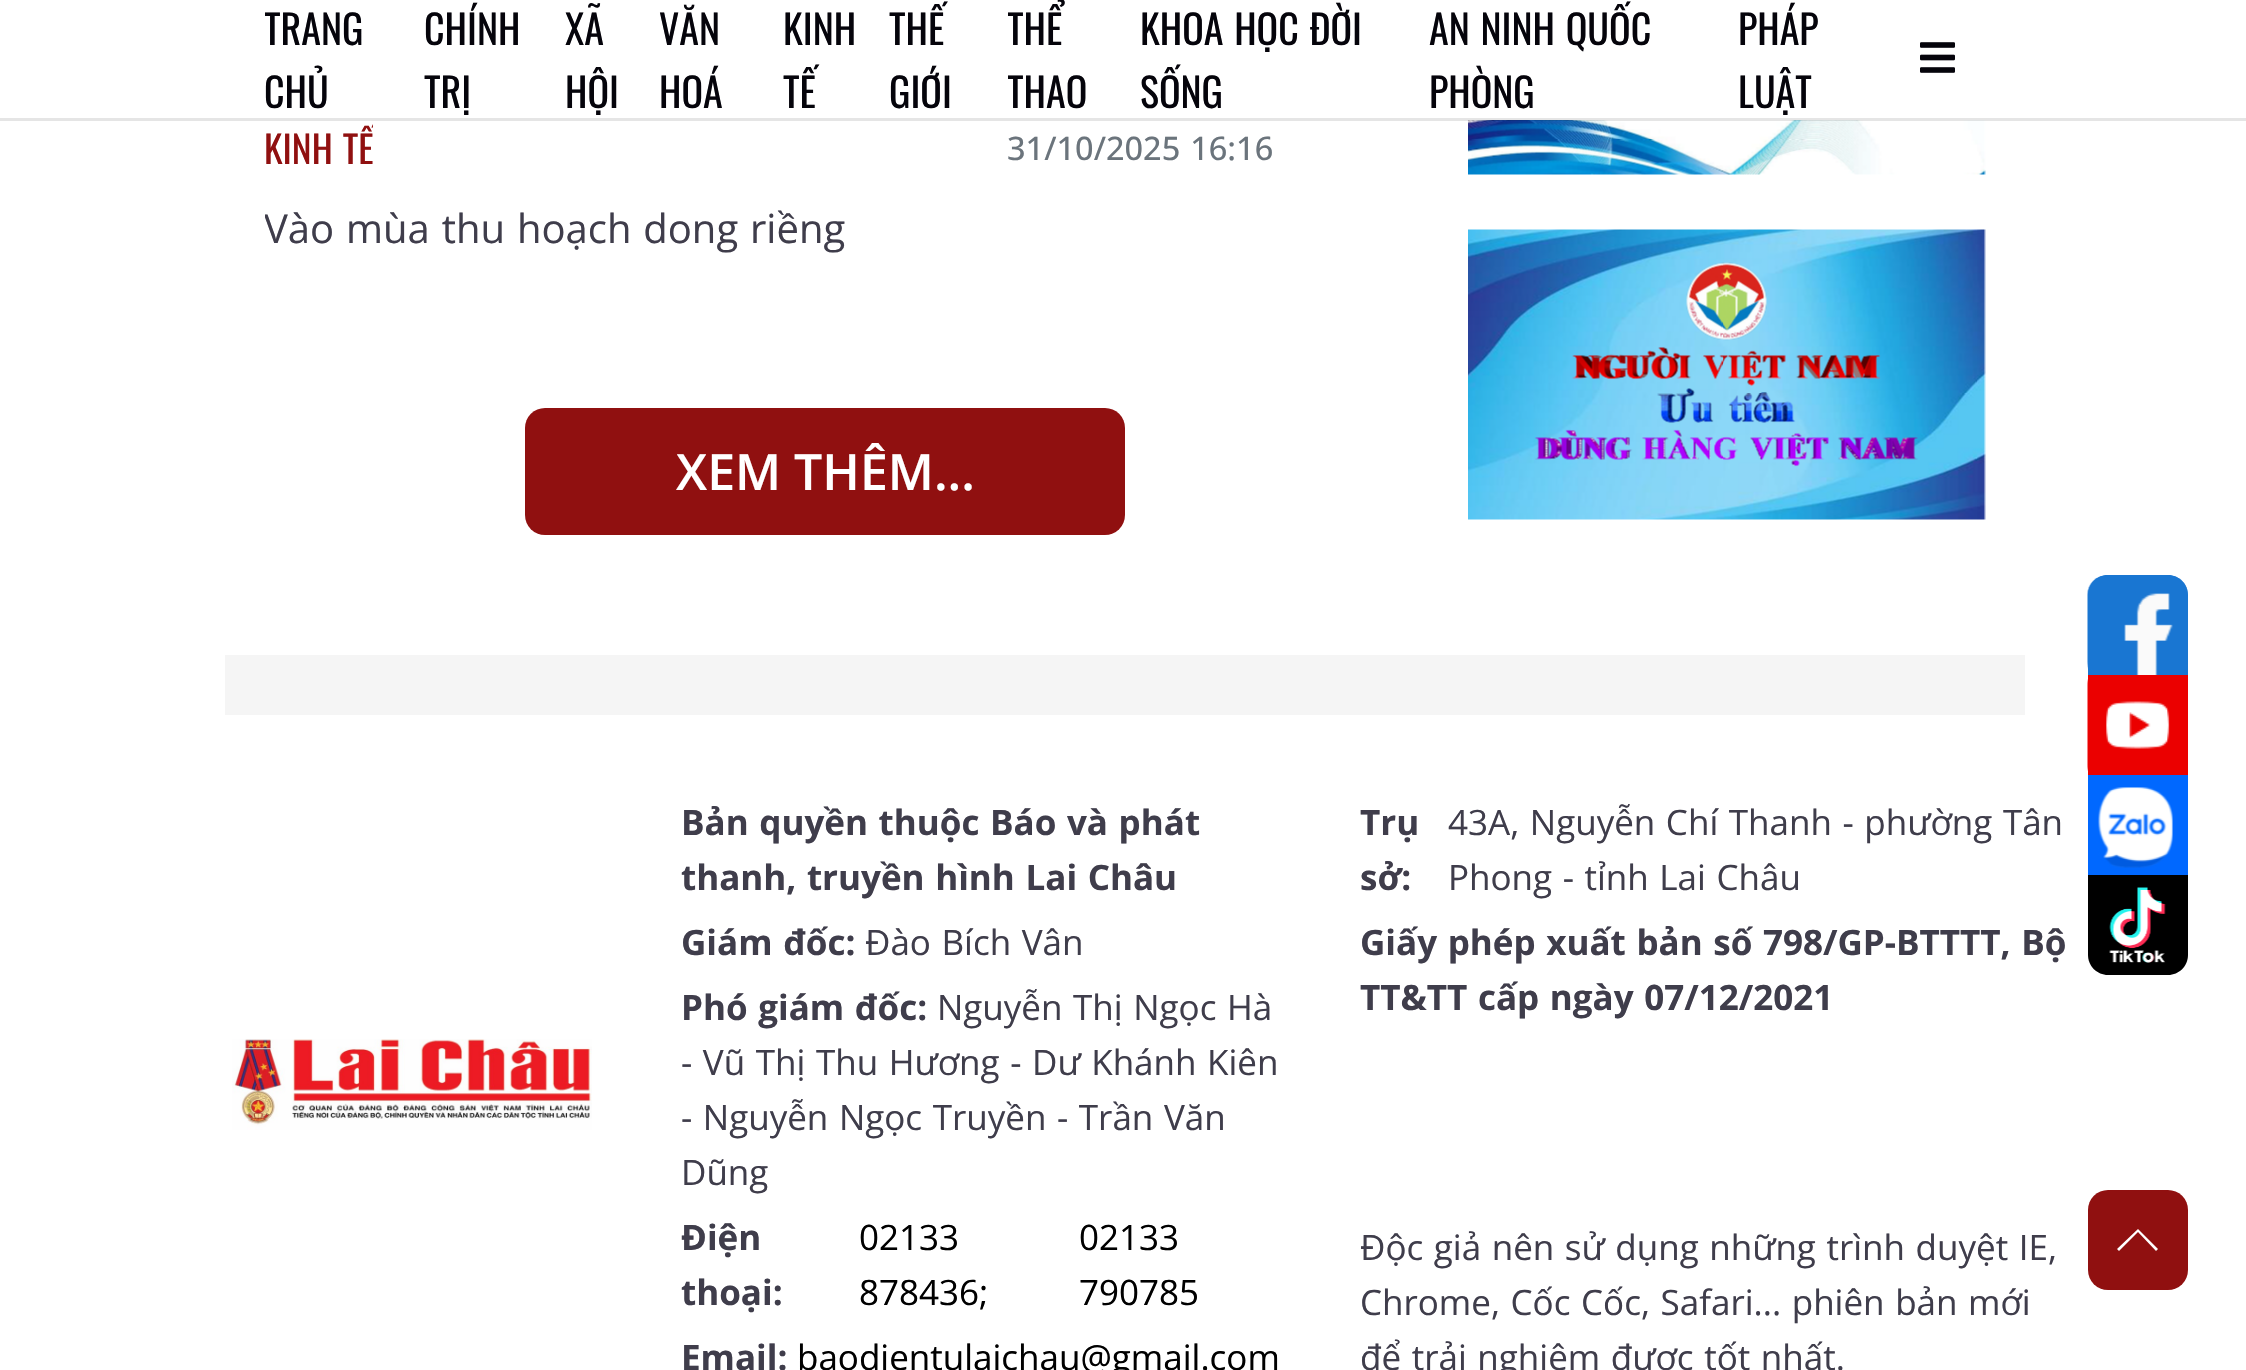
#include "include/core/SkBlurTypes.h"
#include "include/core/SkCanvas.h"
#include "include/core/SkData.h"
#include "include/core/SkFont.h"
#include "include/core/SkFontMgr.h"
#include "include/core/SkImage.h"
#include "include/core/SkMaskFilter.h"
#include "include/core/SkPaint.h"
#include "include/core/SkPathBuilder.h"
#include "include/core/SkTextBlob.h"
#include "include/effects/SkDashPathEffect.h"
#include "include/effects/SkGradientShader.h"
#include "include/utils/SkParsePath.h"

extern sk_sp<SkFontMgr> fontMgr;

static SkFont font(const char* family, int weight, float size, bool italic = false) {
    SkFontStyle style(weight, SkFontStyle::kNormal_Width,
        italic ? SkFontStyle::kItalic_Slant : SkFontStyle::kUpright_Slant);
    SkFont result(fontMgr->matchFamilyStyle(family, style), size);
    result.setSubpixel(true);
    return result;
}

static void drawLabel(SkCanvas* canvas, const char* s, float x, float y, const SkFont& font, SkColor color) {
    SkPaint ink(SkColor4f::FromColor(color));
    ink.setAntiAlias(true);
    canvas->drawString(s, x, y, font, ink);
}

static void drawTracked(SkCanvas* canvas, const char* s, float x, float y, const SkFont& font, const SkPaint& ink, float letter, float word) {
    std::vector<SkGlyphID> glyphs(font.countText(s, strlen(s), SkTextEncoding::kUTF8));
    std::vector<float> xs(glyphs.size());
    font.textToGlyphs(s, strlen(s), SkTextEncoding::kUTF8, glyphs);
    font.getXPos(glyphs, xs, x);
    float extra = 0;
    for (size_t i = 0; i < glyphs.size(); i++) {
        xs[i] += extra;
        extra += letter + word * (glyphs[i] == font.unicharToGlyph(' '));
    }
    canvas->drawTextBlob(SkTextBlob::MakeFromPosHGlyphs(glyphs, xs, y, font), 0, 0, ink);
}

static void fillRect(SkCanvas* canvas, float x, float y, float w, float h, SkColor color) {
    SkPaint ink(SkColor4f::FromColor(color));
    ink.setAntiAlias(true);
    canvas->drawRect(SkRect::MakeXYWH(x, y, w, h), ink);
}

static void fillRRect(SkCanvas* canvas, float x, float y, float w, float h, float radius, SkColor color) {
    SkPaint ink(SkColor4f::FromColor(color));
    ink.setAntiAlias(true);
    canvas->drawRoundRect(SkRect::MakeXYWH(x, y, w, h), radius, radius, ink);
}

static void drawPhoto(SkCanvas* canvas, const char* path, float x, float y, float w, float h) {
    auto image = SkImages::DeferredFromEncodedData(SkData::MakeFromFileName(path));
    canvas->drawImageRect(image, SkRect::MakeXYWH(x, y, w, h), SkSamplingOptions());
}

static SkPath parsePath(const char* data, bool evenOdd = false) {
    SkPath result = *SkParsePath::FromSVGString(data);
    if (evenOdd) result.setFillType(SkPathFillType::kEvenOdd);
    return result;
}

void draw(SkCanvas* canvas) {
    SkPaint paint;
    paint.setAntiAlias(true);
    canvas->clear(0xFFFFFFFF);
    drawPhoto(canvas, "assets/img2.png", 1468, 120, 518, 55);
    fillRect(canvas, 0, 118, 2246, 3, 0x1A000000);
    canvas->save();
    canvas->clipRect(SkRect::MakeXYWH(265, 0, 158, 143));
    SkFont font1 = font("Oswald", 400, 40);
    drawLabel(canvas, "TRANG", 264, 45, font1, 0xFF05040B);
    canvas->restore();
    drawLabel(canvas, "CHỦ", 264, 108, font1, 0xFF05040B);
    drawLabel(canvas, "CHÍNH", 424, 45, font1, 0xFF05040B);
    drawLabel(canvas, "TRỊ", 424, 108, font1, 0xFF05040B);
    drawLabel(canvas, "XÃ", 565, 45, font1, 0xFF05040B);
    drawLabel(canvas, "HỘI", 565, 108, font1, 0xFF05040B);
    drawLabel(canvas, "VĂN", 659, 45, font1, 0xFF05040B);
    drawLabel(canvas, "HOÁ", 659, 108, font1, 0xFF05040B);
    drawLabel(canvas, "KINH", 783, 45, font1, 0xFF05040B);
    drawLabel(canvas, "TẾ", 783, 108, font1, 0xFF05040B);
    drawLabel(canvas, "THẾ", 889, 45, font1, 0xFF05040B);
    drawLabel(canvas, "GIỚI", 889, 108, font1, 0xFF05040B);
    canvas->save();
    canvas->clipRect(SkRect::MakeXYWH(1008, 0, 132, 143));
    drawLabel(canvas, "THỂ", 1007, 45, font1, 0xFF05040B);
    drawLabel(canvas, "THAO", 1007, 108, font1, 0xFF05040B);
    canvas->restore();
    paint.setColor(0xFF05040B);
    drawTracked(canvas, "KHOA HỌC ĐỜI", 1140, 45, font1, paint, 0, 1.5f);
    drawLabel(canvas, "SỐNG", 1140, 108, font1, 0xFF05040B);
    drawTracked(canvas, "AN NINH QUỐC", 1429, 45, font1, paint, 0, 1.5f);
    drawLabel(canvas, "PHÒNG", 1429, 108, font1, 0xFF05040B);
    drawLabel(canvas, "PHÁP", 1738, 45, font1, 0xFF05040B);
    drawLabel(canvas, "LUẬT", 1738, 108, font1, 0xFF05040B);
    drawPhoto(canvas, "assets/img1.png", 1920, 42, 35, 31);
    canvas->save();
    canvas->clipRect(SkRect::MakeXYWH(265, 120, 108, 58));
    SkFont font2 = font("Oswald", 400, 37.5f);
    paint.setColor(0xFF901010);
    drawTracked(canvas, "KINH TẾ", 264, 164, font2, paint, 0, 1.5f);
    canvas->restore();
    SkFont font3 = font("Open Sans", 500, 32.5f);
    paint.setColor(0xFF6B747C);
    drawTracked(canvas, "31/10/2025 16:16", 1007, 160, font3, paint, 0, 1.5f);
    canvas->save();
    canvas->clipRect(SkRect::MakeXYWH(265, 198, 1010, 60));
    SkFont font4 = font("Open Sans", 400, 40);
    paint.setColor(0xFF3F3D4B);
    drawTracked(canvas, "Vào mùa thu hoạch dong riềng", 264, 243, font4, paint, 0, 1.5f);
    canvas->restore();
    fillRRect(canvas, 525, 408, 600, 127, 20, 0xFF901010);
    SkFont font5 = font("Open Sans", 600, 50);
    drawLabel(canvas, "XEM THÊM...", 676, 490, font5, 0xFFFFFFFF);
    drawPhoto(canvas, "assets/img3.png", 1468, 229, 518, 291);
    fillRect(canvas, 225, 655, 1800, 60, 0xFFF5F5F5);
    drawPhoto(canvas, "assets/img4.png", 232, 1039, 360, 91);
    SkFont font6 = font("Open Sans", 700, 35);
    drawTracked(canvas, "Bản quyền thuộc Báo và phát", 681, 835, font6, paint, 0, 1.5f);
    drawTracked(canvas, "thanh, truyền hình Lai Châu", 681, 890, font6, paint, 0, 1.5f);
    drawTracked(canvas, "Giám đốc:", 681, 955, font6, paint, 0, 1.5f);
    SkFont font7 = font("Open Sans", 400, 35);
    drawTracked(canvas, "Đào Bích Vân", 865, 955, font7, paint, 0, 1.5f);
    drawTracked(canvas, "Phó giám đốc:", 681, 1020, font6, paint, 0, 1.5f);
    drawTracked(canvas, "Nguyễn Thị Ngọc Hà", 937, 1020, font7, paint, 0, 1.5f);
    drawTracked(canvas, "- Vũ Thị Thu Hương - Dư Khánh Kiên", 681, 1075, font7, paint, 0, 1.5f);
    drawTracked(canvas, "- Nguyễn Ngọc Truyền - Trần Văn", 681, 1130, font7, paint, 0, 1.5f);
    drawLabel(canvas, "Dũng", 681, 1185, font7, 0xFF3F3D4B);
    drawLabel(canvas, "Điện", 681, 1250, font6, 0xFF3F3D4B);
    drawLabel(canvas, "thoại:", 681, 1305, font6, 0xFF3F3D4B);
    drawLabel(canvas, "02133", 859, 1250, font7, 0xFF000000);
    drawLabel(canvas, "878436;", 859, 1305, font7, 0xFF000000);
    drawLabel(canvas, "02133", 1079, 1250, font7, 0xFF000000);
    drawLabel(canvas, "790785", 1079, 1305, font7, 0xFF000000);
    drawLabel(canvas, "Email:", 681, 1370, font6, 0xFF3F3D4B);
    drawLabel(canvas, "baodientulaichau@gmail.com", 797, 1370, font7, 0xFF000000);
    drawLabel(canvas, "Trụ", 1360, 835, font6, 0xFF3F3D4B);
    drawLabel(canvas, "sở:", 1360, 890, font6, 0xFF3F3D4B);
    drawTracked(canvas, "43A, Nguyễn Chí Thanh - phường Tân", 1448, 835, font7, paint, 0, 1.5f);
    drawTracked(canvas, "Phong - tỉnh Lai Châu", 1448, 890, font7, paint, 0, 1.5f);
    drawTracked(canvas, "Giấy phép xuất bản số 798/GP-BTTTT, Bộ", 1360, 955, font6, paint, 0, 1.5f);
    drawTracked(canvas, "TT&TT cấp ngày 07/12/2021", 1360, 1010, font6, paint, 0, 1.5f);
    drawTracked(canvas, "Độc giả nên sử dụng những trình duyệt IE,", 1360, 1260, font7, paint, 0, 1.5f);
    drawTracked(canvas, "Chrome, Cốc Cốc, Safari... phiên bản mới", 1360, 1315, font7, paint, 0, 1.5f);
    drawTracked(canvas, "để trải nghiệm được tốt nhất.", 1360, 1370, font7, paint, 0, 1.5f);
    paint.setColor(0xFF1976D2);
    canvas->drawPath(parsePath("M2108 575H2168C2179 575 2188 584 2188 595V675H2088V595C2088 584 2097 575 2108 575Z"), paint);
    drawPhoto(canvas, "assets/img5.png", 2087, 575, 101, 100);
    fillRect(canvas, 2088, 675, 100, 100, 0xFFEB0000);
    drawPhoto(canvas, "assets/img6.png", 2087, 679, 83, 92);
    fillRect(canvas, 2088, 775, 100, 100, 0xFF0068FF);
    drawPhoto(canvas, "assets/img7.png", 2098, 787, 75, 81);
    paint.setColor(0xFF000000);
    canvas->drawPath(parsePath("M2088 875H2188V955C2188 966 2179 975 2168 975H2108C2097 975 2088 966 2088 955Z"), paint);
    drawPhoto(canvas, "assets/img8.png", 2109, 887, 57, 76);
    fillRRect(canvas, 2088, 1190, 100, 100, 20, 0xFF901010);
    paint.setColor(0xFFFFFFFF);
    canvas->drawPath(parsePath("M2158 1249L2156 1251L2138 1232L2119 1251L2117 1249L2138 1229Z"), paint);
}
